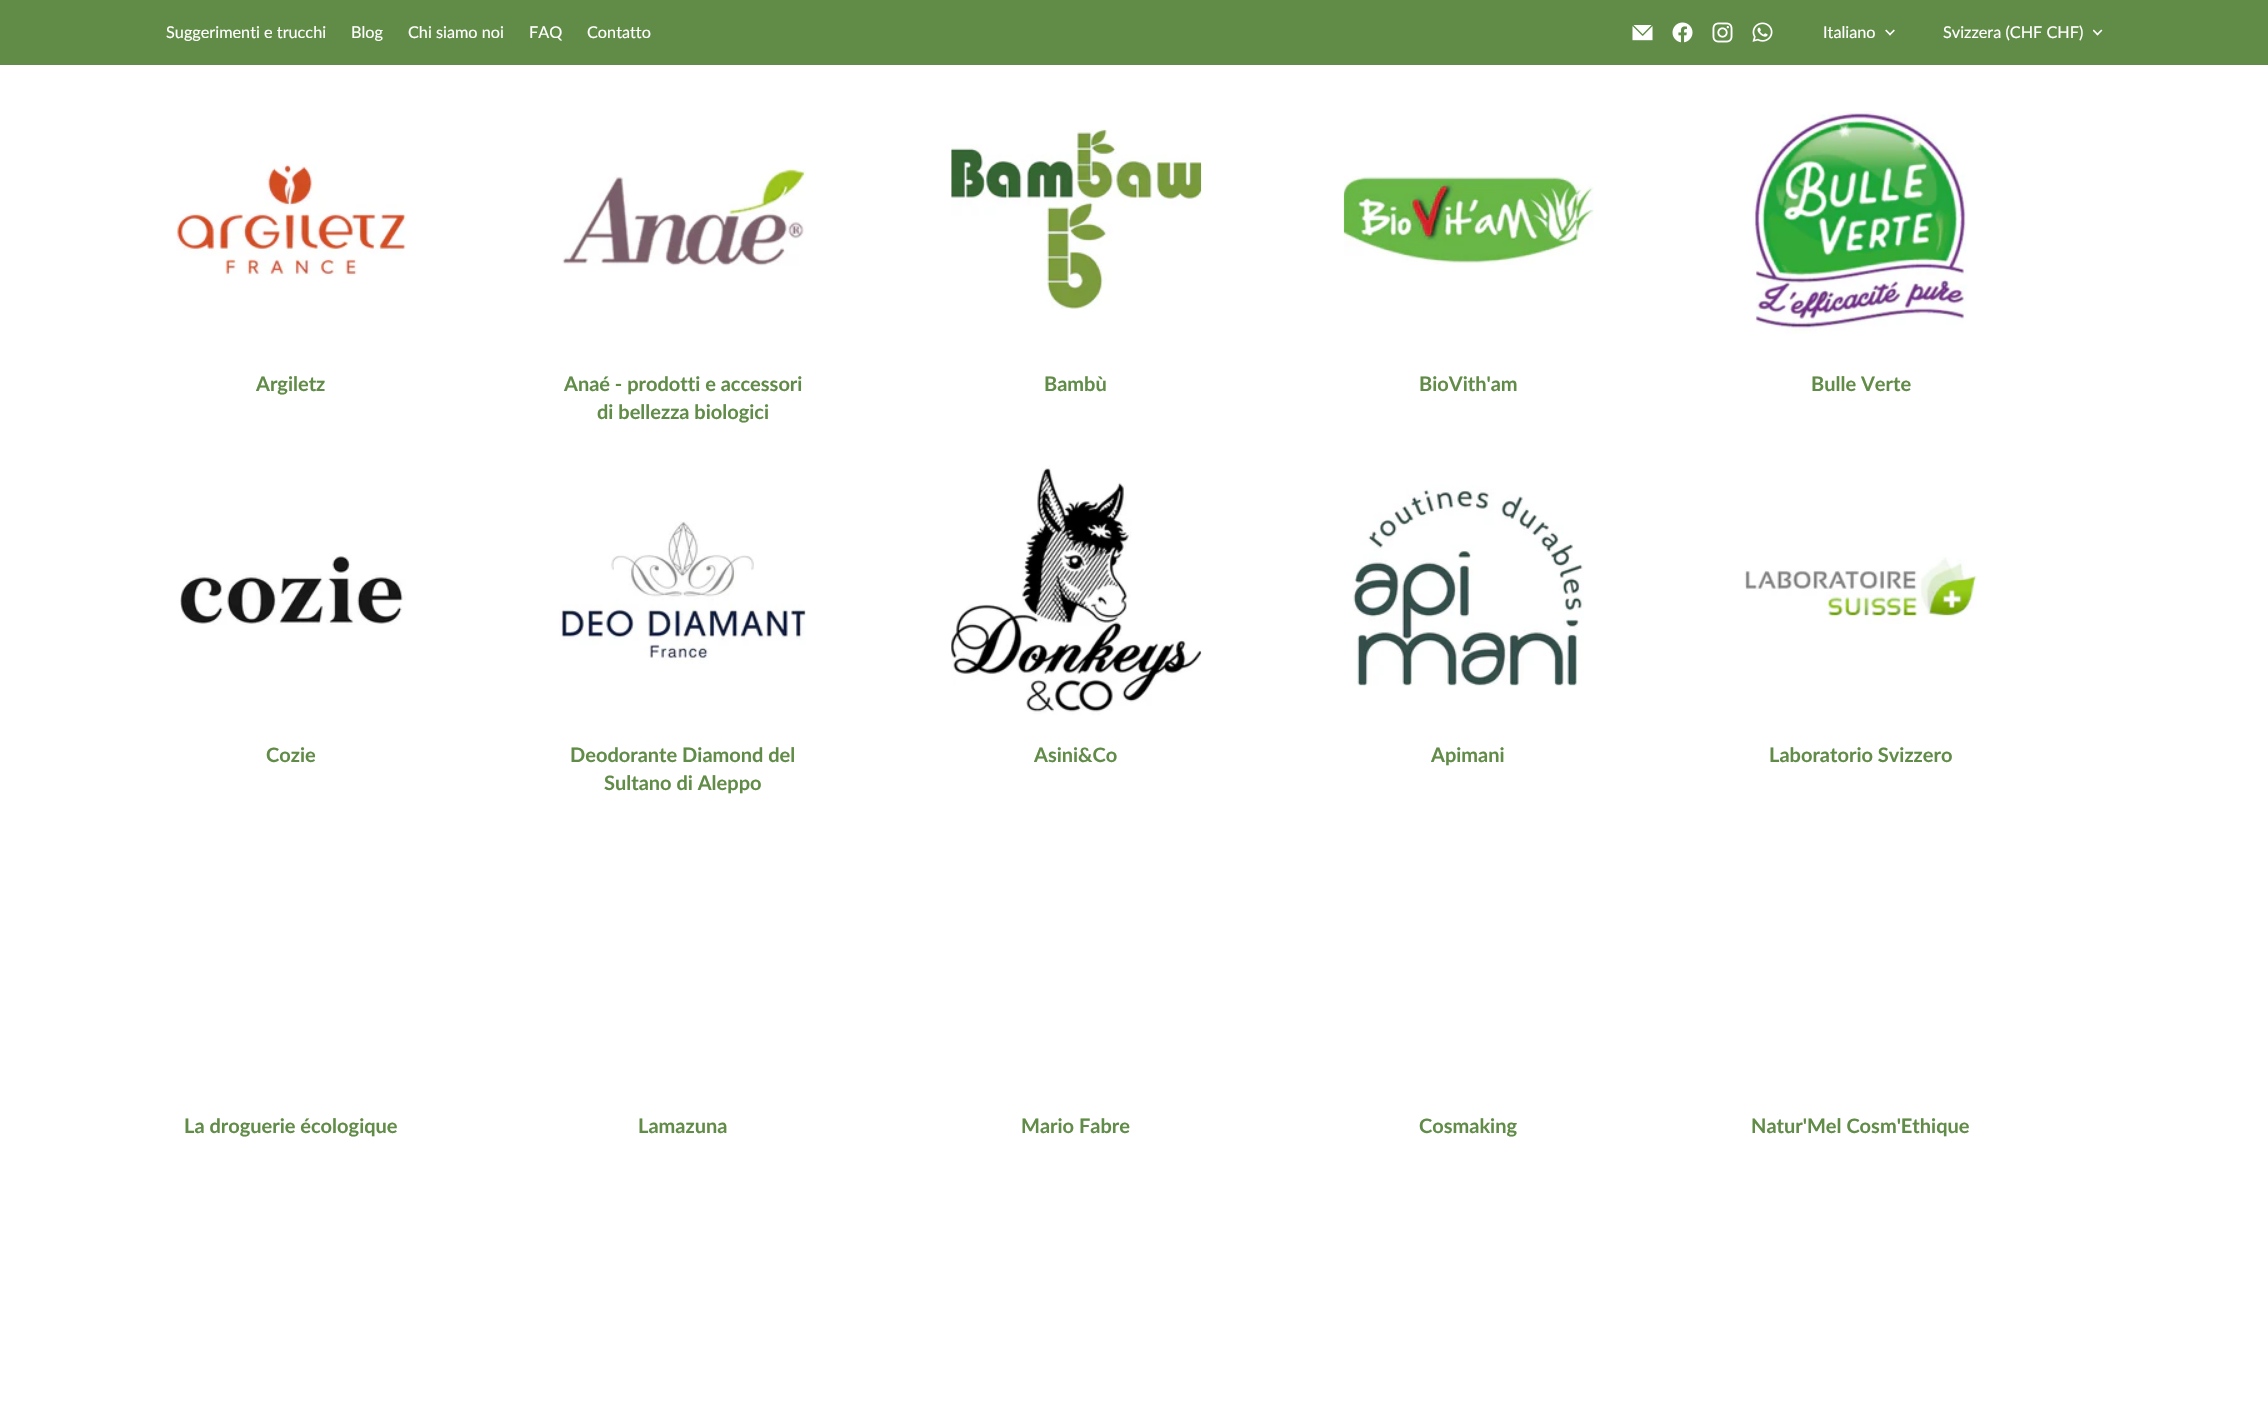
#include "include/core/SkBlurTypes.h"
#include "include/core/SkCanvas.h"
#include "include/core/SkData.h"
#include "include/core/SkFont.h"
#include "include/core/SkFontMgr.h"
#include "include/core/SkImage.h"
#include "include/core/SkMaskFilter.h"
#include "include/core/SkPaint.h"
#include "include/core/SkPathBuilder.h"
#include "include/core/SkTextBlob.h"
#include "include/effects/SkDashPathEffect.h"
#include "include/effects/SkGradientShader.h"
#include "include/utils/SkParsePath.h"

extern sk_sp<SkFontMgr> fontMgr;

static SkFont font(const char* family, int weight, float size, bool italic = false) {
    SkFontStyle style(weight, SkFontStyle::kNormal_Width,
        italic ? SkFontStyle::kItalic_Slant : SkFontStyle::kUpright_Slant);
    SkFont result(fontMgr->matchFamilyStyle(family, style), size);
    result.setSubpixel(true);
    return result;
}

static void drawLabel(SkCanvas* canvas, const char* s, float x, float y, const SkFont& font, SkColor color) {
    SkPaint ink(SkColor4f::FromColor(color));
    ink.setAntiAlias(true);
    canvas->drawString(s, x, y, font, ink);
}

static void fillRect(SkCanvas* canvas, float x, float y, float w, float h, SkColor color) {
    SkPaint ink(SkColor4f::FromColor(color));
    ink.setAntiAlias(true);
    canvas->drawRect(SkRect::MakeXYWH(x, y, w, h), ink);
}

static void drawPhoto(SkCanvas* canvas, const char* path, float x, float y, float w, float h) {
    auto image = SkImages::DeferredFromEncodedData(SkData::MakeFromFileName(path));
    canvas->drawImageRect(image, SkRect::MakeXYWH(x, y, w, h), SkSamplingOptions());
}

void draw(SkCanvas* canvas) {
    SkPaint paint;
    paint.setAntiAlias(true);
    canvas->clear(0xFFFFFFFF);
    fillRect(canvas, 0, 0, 2268, 65, 0xFF618C48);
    SkFont font1 = font("Lato", 400, 16.25f);
    drawLabel(canvas, "Suggerimenti e trucchi", 166, 38, font1, 0xFFFFFFFF);
    drawLabel(canvas, "Blog", 351, 38, font1, 0xFFFFFFFF);
    drawLabel(canvas, "Chi siamo noi", 408, 38, font1, 0xFFFFFFFF);
    drawLabel(canvas, "FAQ", 529, 38, font1, 0xFFFFFFFF);
    drawLabel(canvas, "Contatto", 587, 38, font1, 0xFFFFFFFF);
    drawPhoto(canvas, "assets/img1.png", 1632, 25, 21, 16);
    drawPhoto(canvas, "assets/img2.png", 1672, 22, 21, 21);
    drawPhoto(canvas, "assets/img3.png", 1712, 22, 21, 21);
    drawPhoto(canvas, "assets/img4.png", 1752, 22, 21, 20);
    drawLabel(canvas, "Italiano", 1823, 38, font1, 0xFFFFFFFF);
    drawPhoto(canvas, "assets/img5.png", 1885, 29, 10, 7);
    drawLabel(canvas, "Svizzera (CHF CHF)", 1943, 38, font1, 0xFFFFFFFF);
    drawPhoto(canvas, "assets/img6.png", 2093, 29, 10, 7);
    drawPhoto(canvas, "assets/img7.png", 176, 164, 231, 112);
    SkFont font2 = font("Lato", 700, 20);
    drawLabel(canvas, "Argiletz", 256, 391, font2, 0xFF618C48);
    drawPhoto(canvas, "assets/img8.png", 562, 168, 244, 98);
    drawLabel(canvas, "Anaé - prodotti e accessori", 564, 391, font2, 0xFF618C48);
    drawLabel(canvas, "di bellezza biologici", 597, 419, font2, 0xFF618C48);
    drawPhoto(canvas, "assets/img9.png", 951, 129, 251, 180);
    drawLabel(canvas, "Bambù", 1044, 391, font2, 0xFF618C48);
    drawPhoto(canvas, "assets/img10.png", 1343, 176, 251, 89);
    drawLabel(canvas, "BioVith'am", 1419, 391, font2, 0xFF618C48);
    drawPhoto(canvas, "assets/img11.png", 1753, 111, 214, 223);
    drawLabel(canvas, "Bulle Verte", 1811, 391, font2, 0xFF618C48);
    drawPhoto(canvas, "assets/img12.png", 180, 555, 226, 70);
    drawLabel(canvas, "Cozie", 266, 762, font2, 0xFF618C48);
    drawPhoto(canvas, "assets/img13.png", 559, 521, 247, 143);
    drawLabel(canvas, "Deodorante Diamond del", 570, 762, font2, 0xFF618C48);
    drawLabel(canvas, "Sultano di Aleppo", 604, 790, font2, 0xFF618C48);
    drawPhoto(canvas, "assets/img14.png", 951, 465, 251, 250);
    drawLabel(canvas, "Asini&Co", 1034, 762, font2, 0xFF618C48);
    drawPhoto(canvas, "assets/img15.png", 1353, 485, 231, 201);
    drawLabel(canvas, "Apimani", 1431, 762, font2, 0xFF618C48);
    drawPhoto(canvas, "assets/img16.png", 1744, 557, 234, 67);
    drawLabel(canvas, "Laboratorio Svizzero", 1769, 762, font2, 0xFF618C48);
    drawLabel(canvas, "La droguerie écologique", 184, 1133, font2, 0xFF618C48);
    drawLabel(canvas, "Lamazuna", 638, 1133, font2, 0xFF618C48);
    drawLabel(canvas, "Mario Fabre", 1021, 1133, font2, 0xFF618C48);
    drawLabel(canvas, "Cosmaking", 1419, 1133, font2, 0xFF618C48);
    drawLabel(canvas, "Natur'Mel Cosm'Ethique", 1751, 1133, font2, 0xFF618C48);
}
